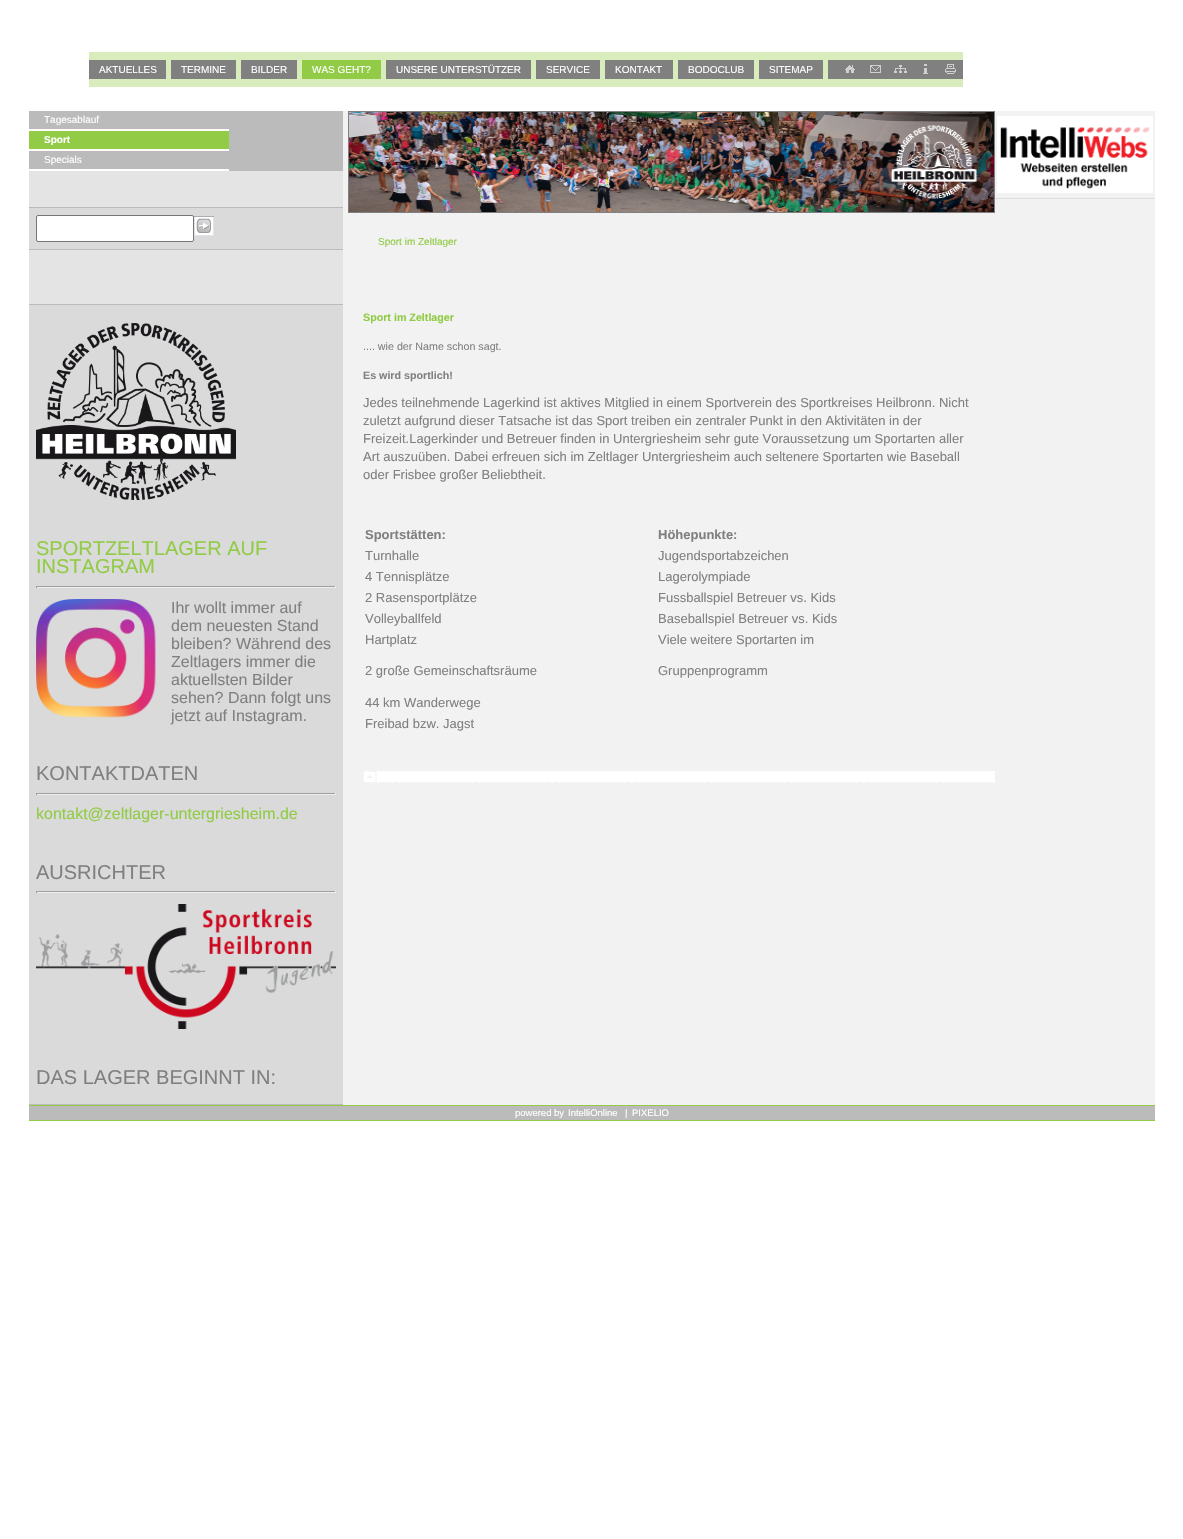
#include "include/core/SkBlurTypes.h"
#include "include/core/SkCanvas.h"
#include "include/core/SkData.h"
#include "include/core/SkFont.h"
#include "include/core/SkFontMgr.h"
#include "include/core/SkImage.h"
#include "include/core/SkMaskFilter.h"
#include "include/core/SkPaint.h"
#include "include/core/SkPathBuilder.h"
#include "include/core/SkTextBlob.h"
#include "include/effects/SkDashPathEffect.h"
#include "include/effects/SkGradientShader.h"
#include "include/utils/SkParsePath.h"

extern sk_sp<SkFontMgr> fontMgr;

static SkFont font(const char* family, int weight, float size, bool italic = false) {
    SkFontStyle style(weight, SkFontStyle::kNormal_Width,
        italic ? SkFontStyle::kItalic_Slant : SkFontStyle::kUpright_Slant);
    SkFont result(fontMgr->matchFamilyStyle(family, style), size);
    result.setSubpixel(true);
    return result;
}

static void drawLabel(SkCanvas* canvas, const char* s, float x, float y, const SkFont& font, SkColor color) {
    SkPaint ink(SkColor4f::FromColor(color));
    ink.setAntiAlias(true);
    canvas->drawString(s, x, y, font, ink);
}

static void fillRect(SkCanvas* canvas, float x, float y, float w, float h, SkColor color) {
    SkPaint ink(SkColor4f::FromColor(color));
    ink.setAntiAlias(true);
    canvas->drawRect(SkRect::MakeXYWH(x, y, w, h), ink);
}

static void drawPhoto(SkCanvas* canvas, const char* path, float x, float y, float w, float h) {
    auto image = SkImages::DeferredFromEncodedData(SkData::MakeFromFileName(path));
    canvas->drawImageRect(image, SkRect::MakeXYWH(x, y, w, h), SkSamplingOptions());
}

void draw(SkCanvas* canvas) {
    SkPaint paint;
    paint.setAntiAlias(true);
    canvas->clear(0xFFFFFFFF);
    fillRect(canvas, 89, 52, 874, 35, 0xFFD9EDBC);
    fillRect(canvas, 89, 60, 77, 19, 0xFF808080);
    fillRect(canvas, 171, 60, 65, 19, 0xFF808080);
    fillRect(canvas, 241, 60, 56, 19, 0xFF808080);
    fillRect(canvas, 302, 60, 79, 19, 0xFF92CB46);
    fillRect(canvas, 386, 60, 145, 19, 0xFF808080);
    fillRect(canvas, 536, 60, 64, 19, 0xFF808080);
    fillRect(canvas, 605, 60, 68, 19, 0xFF808080);
    fillRect(canvas, 678, 60, 76, 19, 0xFF808080);
    fillRect(canvas, 759, 60, 64, 19, 0xFF808080);
    fillRect(canvas, 828, 60, 135, 19, 0xFF808080);
    drawPhoto(canvas, "assets/img1.png", 845, 65, 10, 8);
    drawPhoto(canvas, "assets/img2.png", 870, 65, 11, 8);
    drawPhoto(canvas, "assets/img3.png", 894, 65, 13, 8);
    drawPhoto(canvas, "assets/img4.png", 923, 64, 5, 10);
    drawPhoto(canvas, "assets/img5.png", 945, 64, 11, 10);
    SkFont font1 = font("Liberation Sans", 400, 10);
    drawLabel(canvas, "AKTUELLES", 99, 73, font1, 0xFFFFFFFF);
    drawLabel(canvas, "TERMINE", 181, 73, font1, 0xFFFFFFFF);
    drawLabel(canvas, "BILDER", 251, 73, font1, 0xFFFFFFFF);
    drawLabel(canvas, "WAS GEHT?", 312, 73, font1, 0xFFFFFFFF);
    drawLabel(canvas, "UNSERE UNTERSTÜTZER", 396, 73, font1, 0xFFFFFFFF);
    drawLabel(canvas, "SERVICE", 546, 73, font1, 0xFFFFFFFF);
    drawLabel(canvas, "KONTAKT", 615, 73, font1, 0xFFFFFFFF);
    drawLabel(canvas, "BODOCLUB", 688, 73, font1, 0xFFFFFFFF);
    drawLabel(canvas, "SITEMAP", 769, 73, font1, 0xFFFFFFFF);
    fillRect(canvas, 343, 111, 812, 994, 0xFFF2F2F2);
    fillRect(canvas, 29, 171, 314, 133, 0xFFE4E4E4);
    fillRect(canvas, 29, 111, 314, 60, 0xFFBBBBBB);
    drawLabel(canvas, "Tagesablauf", 44, 123, font1, 0xFFFFFFFF);
    fillRect(canvas, 29, 129, 200, 2, 0xFFFFFFFF);
    fillRect(canvas, 29, 131, 200, 18, 0xFF92CB46);
    fillRect(canvas, 29, 149, 200, 2, 0xFFFFFFFF);
    SkFont font2 = font("Liberation Sans", 700, 10);
    drawLabel(canvas, "Sport", 44, 143, font2, 0xFFFFFFFF);
    drawLabel(canvas, "Specials", 44, 163, font1, 0xFFFFFFFF);
    fillRect(canvas, 29, 169, 200, 2, 0xFFFFFFFF);
    fillRect(canvas, 29, 208, 314, 41, 0xFFDADADA);
    fillRect(canvas, 29, 207, 314, 1, 0xFFBBBBBB);
    fillRect(canvas, 29, 249, 314, 1, 0xFFBBBBBB);
    paint.setColor(0xFFFFFFFF);
    canvas->drawRoundRect(SkRect::MakeXYWH(36.5f, 215.5f, 157, 26), 1.5f, 1.5f, paint);
    paint.setStroke(true);
    paint.setStrokeWidth(1);
    paint.setColor(0xFF767676);
    canvas->drawRoundRect(SkRect::MakeXYWH(36.5f, 215.5f, 157, 26), 1.5f, 1.5f, paint);
    drawPhoto(canvas, "assets/img6.png", 194, 216, 20, 20);
    fillRect(canvas, 29, 305, 314, 799, 0xFFDADADA);
    fillRect(canvas, 29, 304, 314, 1, 0xFFBBBBBB);
    fillRect(canvas, 29, 1104, 314, 1, 0xFFBBBBBB);
    drawPhoto(canvas, "assets/img7.png", 36, 323, 200, 177);
    SkFont font3 = font("Liberation Sans", 400, 20);
    drawLabel(canvas, "SPORTZELTLAGER AUF", 36, 555, font3, 0xFF92CB46);
    drawLabel(canvas, "INSTAGRAM", 36, 573, font3, 0xFF92CB46);
    fillRect(canvas, 36, 586, 300, 1, 0xFF9F9F9F);
    fillRect(canvas, 335, 586, 1, 2, 0xFFEEEEEE);
    fillRect(canvas, 36, 587, 300, 1, 0xFFEEEEEE);
    fillRect(canvas, 36, 586, 1, 2, 0xFF9F9F9F);
    drawPhoto(canvas, "assets/img8.png", 36, 599, 120, 119);
    SkFont font4 = font("Liberation Sans", 400, 16);
    drawLabel(canvas, "Ihr wollt immer auf", 171, 613, font4, 0xFF808080);
    drawLabel(canvas, "dem neuesten Stand", 171, 631, font4, 0xFF808080);
    drawLabel(canvas, "bleiben? Während des", 171, 649, font4, 0xFF808080);
    drawLabel(canvas, "Zeltlagers immer die", 171, 667, font4, 0xFF808080);
    drawLabel(canvas, "aktuellsten Bilder", 171, 685, font4, 0xFF808080);
    drawLabel(canvas, "sehen? Dann folgt uns", 171, 703, font4, 0xFF808080);
    drawLabel(canvas, "jetzt auf Instagram.", 171, 721, font4, 0xFF808080);
    drawLabel(canvas, "KONTAKTDATEN", 36, 780, font3, 0xFF808080);
    fillRect(canvas, 36, 793, 300, 1, 0xFF9F9F9F);
    fillRect(canvas, 335, 793, 1, 2, 0xFFEEEEEE);
    fillRect(canvas, 36, 794, 300, 1, 0xFFEEEEEE);
    fillRect(canvas, 36, 793, 1, 2, 0xFF9F9F9F);
    drawLabel(canvas, "kontakt@zeltlager-untergriesheim.de", 36, 819, font4, 0xFF92CB46);
    drawLabel(canvas, "AUSRICHTER", 36, 879, font3, 0xFF808080);
    fillRect(canvas, 36, 891, 300, 1, 0xFF9F9F9F);
    fillRect(canvas, 335, 891, 1, 2, 0xFFEEEEEE);
    fillRect(canvas, 36, 892, 300, 1, 0xFFEEEEEE);
    fillRect(canvas, 36, 891, 1, 2, 0xFF9F9F9F);
    drawPhoto(canvas, "assets/img9.png", 36, 904, 300, 125);
    drawLabel(canvas, "DAS LAGER BEGINNT IN:", 36, 1084, font3, 0xFF808080);
    fillRect(canvas, 995, 198, 160, 1, 0xFFDCDCDC);
    drawPhoto(canvas, "assets/img10.png", 997, 116, 156, 77);
    paint.setColor(0xFF808080);
    canvas->drawRect(SkRect::MakeXYWH(348.5f, 111.5f, 646, 101), paint);
    drawPhoto(canvas, "assets/img11.png", 349, 112, 645, 100);
    drawLabel(canvas, "Sport im Zeltlager", 378, 245, font1, 0xFF92CB46);
    SkFont font5 = font("Liberation Sans", 700, 10.7f);
    drawLabel(canvas, "Sport im Zeltlager", 363, 321, font5, 0xFF92CB46);
    SkFont font6 = font("Liberation Sans", 400, 10.7f);
    drawLabel(canvas, ".... wie der Name schon sagt.", 363, 350, font6, 0xFF808080);
    drawLabel(canvas, "Es wird sportlich!", 363, 379, font5, 0xFF808080);
    SkFont font7 = font("Liberation Sans", 400, 13);
    drawLabel(canvas, "Jedes teilnehmende Lagerkind ist aktives Mitglied in einem Sportverein des Sportkreises Heilbronn. Nicht", 363, 407, font7, 0xFF808080);
    drawLabel(canvas, "zuletzt aufgrund dieser Tatsache ist das Sport treiben ein zentraler Punkt in den Aktivitäten in der", 363, 425, font7, 0xFF808080);
    drawLabel(canvas, "Freizeit.Lagerkinder und Betreuer finden in Untergriesheim sehr gute Voraussetzung um Sportarten aller", 363, 443, font7, 0xFF808080);
    drawLabel(canvas, "Art auszuüben. Dabei erfreuen sich im Zeltlager Untergriesheim auch seltenere Sportarten wie Baseball", 363, 461, font7, 0xFF808080);
    drawLabel(canvas, "oder Frisbee großer Beliebtheit.", 363, 479, font7, 0xFF808080);
    SkFont font8 = font("Liberation Sans", 700, 13);
    drawLabel(canvas, "Sportstätten:", 365, 539, font8, 0xFF808080);
    drawLabel(canvas, "Höhepunkte:", 658, 539, font8, 0xFF808080);
    drawLabel(canvas, "Turnhalle", 365, 560, font7, 0xFF808080);
    drawLabel(canvas, "Jugendsportabzeichen", 658, 560, font7, 0xFF808080);
    drawLabel(canvas, "4 Tennisplätze", 365, 581, font7, 0xFF808080);
    drawLabel(canvas, "Lagerolympiade", 658, 581, font7, 0xFF808080);
    drawLabel(canvas, "2 Rasensportplätze", 365, 602, font7, 0xFF808080);
    drawLabel(canvas, "Fussballspiel Betreuer vs. Kids", 658, 602, font7, 0xFF808080);
    drawLabel(canvas, "Volleyballfeld", 365, 623, font7, 0xFF808080);
    drawLabel(canvas, "Baseballspiel Betreuer vs. Kids", 658, 623, font7, 0xFF808080);
    drawLabel(canvas, "Hartplatz", 365, 644, font7, 0xFF808080);
    drawLabel(canvas, "Viele weitere Sportarten im", 658, 644, font7, 0xFF808080);
    drawLabel(canvas, "2 große Gemeinschaftsräume", 365, 675, font7, 0xFF808080);
    drawLabel(canvas, "Gruppenprogramm", 658, 675, font7, 0xFF808080);
    drawLabel(canvas, "44 km Wanderwege", 365, 707, font7, 0xFF808080);
    drawLabel(canvas, "Freibad bzw. Jagst", 365, 728, font7, 0xFF808080);
    drawPhoto(canvas, "assets/img12.png", 363, 771, 632, 12);
    fillRect(canvas, 29, 1106, 1126, 14, 0xFFBBBBBB);
    fillRect(canvas, 29, 1105, 1126, 1, 0xFF92CB46);
    fillRect(canvas, 29, 1120, 1126, 1, 0xFF92CB46);
    SkFont font9 = font("Liberation Sans", 400, 9.5f);
    drawLabel(canvas, "powered by", 515, 1116, font9, 0xFFFFFFFF);
    drawLabel(canvas, "IntelliOnline", 568, 1116, font9, 0xFFFFFFFF);
    drawLabel(canvas, "|", 625, 1116, font9, 0xFFFFFFFF);
    drawLabel(canvas, "PIXELIO", 632, 1116, font9, 0xFFFFFFFF);
}
